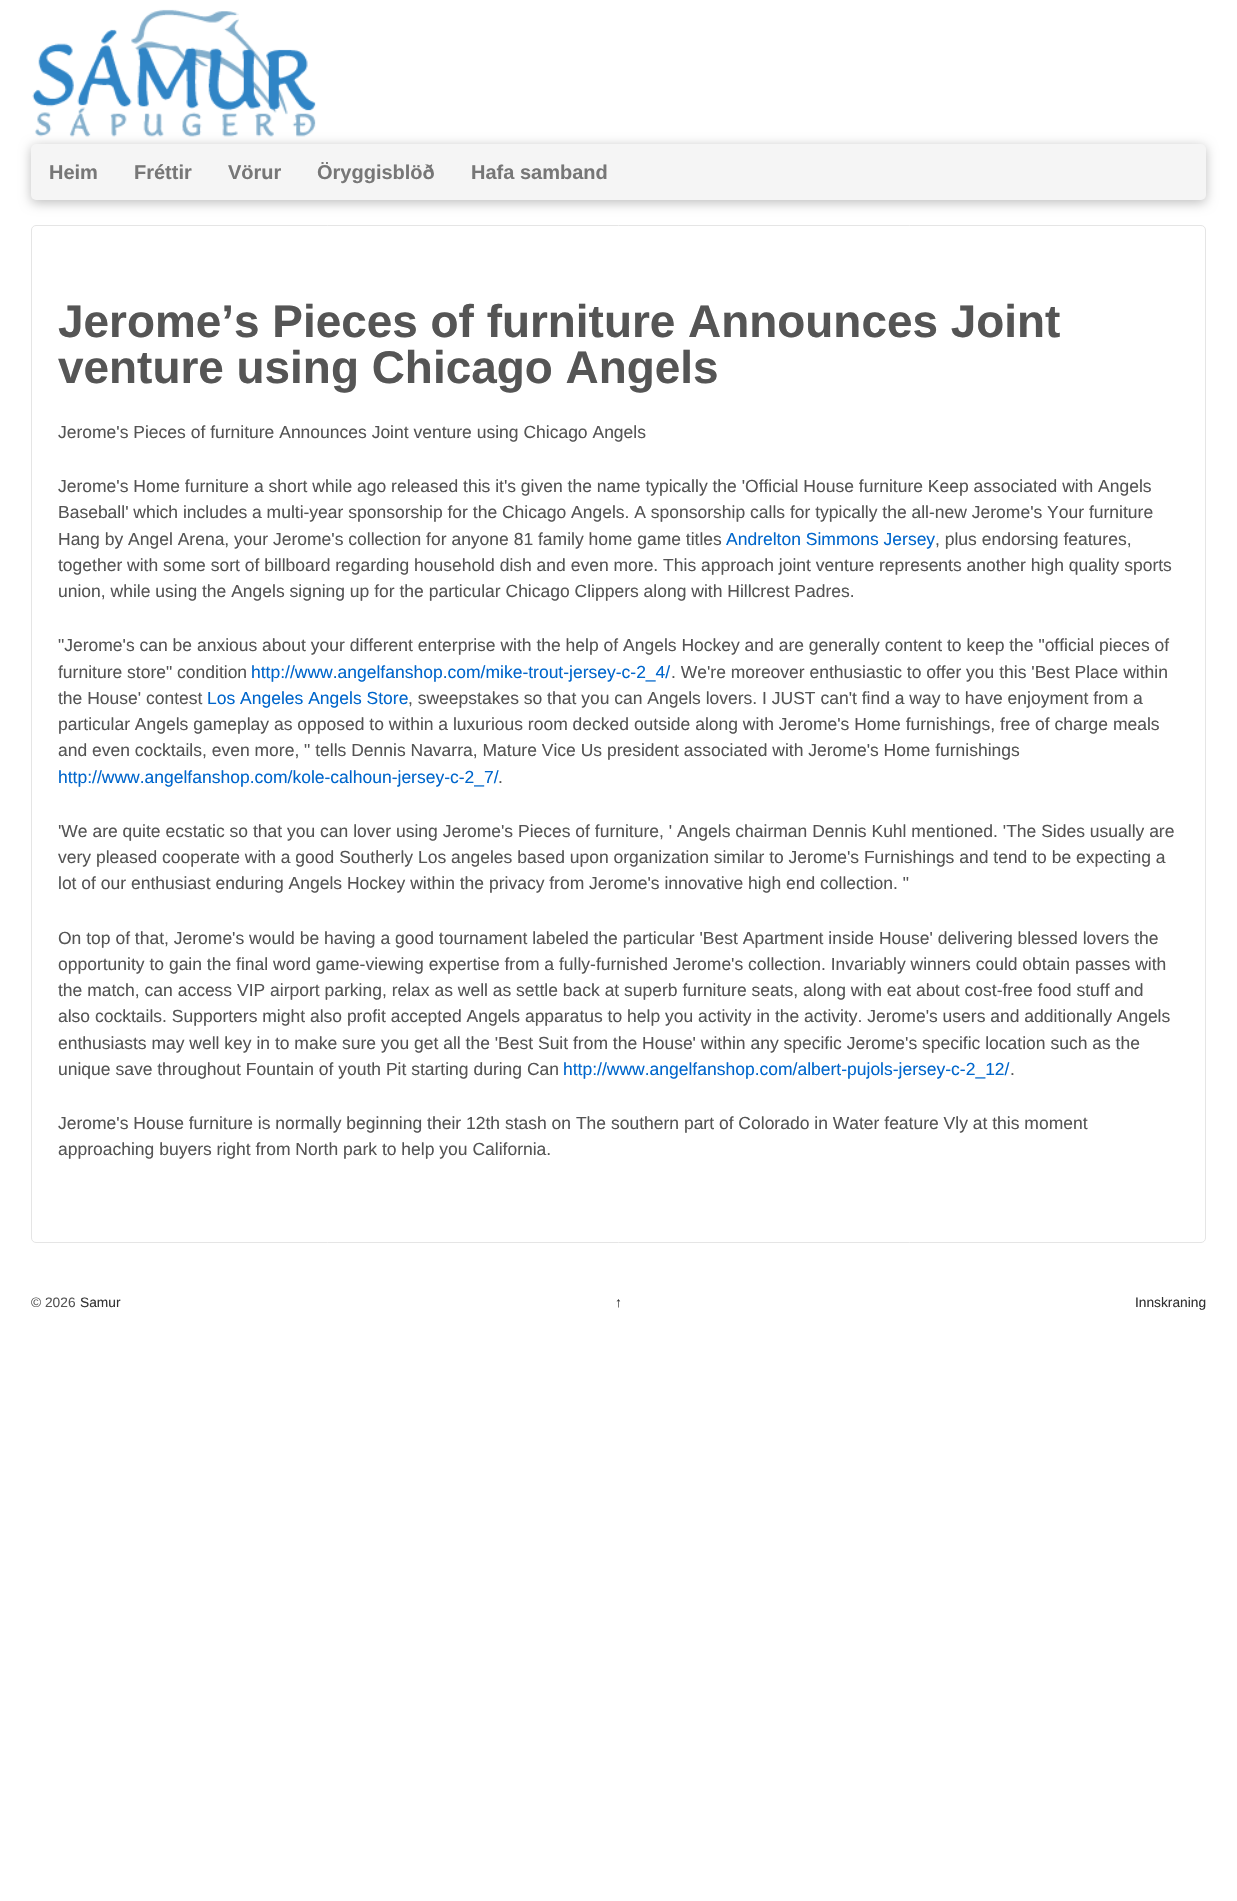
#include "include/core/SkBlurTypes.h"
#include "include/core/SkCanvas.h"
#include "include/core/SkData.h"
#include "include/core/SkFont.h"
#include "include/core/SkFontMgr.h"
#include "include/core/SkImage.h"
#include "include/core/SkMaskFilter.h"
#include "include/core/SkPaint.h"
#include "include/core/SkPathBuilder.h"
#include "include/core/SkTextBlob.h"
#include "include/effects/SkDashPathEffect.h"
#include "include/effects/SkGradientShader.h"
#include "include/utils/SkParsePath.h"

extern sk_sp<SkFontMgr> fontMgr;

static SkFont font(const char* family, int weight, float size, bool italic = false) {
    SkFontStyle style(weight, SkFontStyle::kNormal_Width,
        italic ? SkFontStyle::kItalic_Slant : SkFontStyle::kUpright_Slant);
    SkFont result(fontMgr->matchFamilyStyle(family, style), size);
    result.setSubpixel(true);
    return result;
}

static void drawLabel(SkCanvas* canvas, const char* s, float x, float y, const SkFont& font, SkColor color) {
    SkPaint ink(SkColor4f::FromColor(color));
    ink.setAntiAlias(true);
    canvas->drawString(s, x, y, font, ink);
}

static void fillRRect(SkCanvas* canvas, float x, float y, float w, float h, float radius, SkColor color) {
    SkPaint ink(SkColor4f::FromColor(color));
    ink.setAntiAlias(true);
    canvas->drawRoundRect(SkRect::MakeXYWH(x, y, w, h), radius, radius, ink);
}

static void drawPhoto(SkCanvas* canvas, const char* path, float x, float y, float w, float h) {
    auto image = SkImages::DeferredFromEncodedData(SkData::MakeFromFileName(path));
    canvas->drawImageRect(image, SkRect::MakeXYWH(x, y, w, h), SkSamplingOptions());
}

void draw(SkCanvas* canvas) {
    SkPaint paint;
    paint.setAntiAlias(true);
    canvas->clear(0xFFFFFFFF);
    paint.setColor(0x40000000);
    paint.setMaskFilter(SkMaskFilter::MakeBlur(kNormal_SkBlurStyle, 6));
    canvas->drawRoundRect(SkRect::MakeXYWH(31, 146, 1175, 57), 5, 5, paint);
    paint.setMaskFilter(nullptr);
    drawPhoto(canvas, "assets/img1.png", 32, 9, 284, 128);
    fillRRect(canvas, 31, 144, 1175, 56, 5, 0xFFF5F5F5);
    SkFont font1 = font("Liberation Sans", 700, 20);
    drawLabel(canvas, "Heim", 49, 179, font1, 0xFF777777);
    drawLabel(canvas, "Fréttir", 134, 179, font1, 0xFF777777);
    drawLabel(canvas, "Vörur", 228, 179, font1, 0xFF777777);
    drawLabel(canvas, "Öryggisblöð", 317, 179, font1, 0xFF777777);
    drawLabel(canvas, "Hafa samband", 471, 179, font1, 0xFF777777);
    paint.setStroke(true);
    paint.setStrokeWidth(1);
    paint.setColor(0xFFE5E5E5);
    canvas->drawRoundRect(SkRect::MakeXYWH(31.5f, 225.5f, 1174, 1017), 4.5f, 4.5f, paint);
    SkFont font2 = font("Liberation Sans", 700, 45.9f);
    drawLabel(canvas, "Jerome’s Pieces of furniture Announces Joint", 58, 337, font2, 0xFF555555);
    drawLabel(canvas, "venture using Chicago Angels", 58, 383, font2, 0xFF555555);
    SkFont font3 = font("Liberation Sans", 400, 17.5f);
    drawLabel(canvas, "Jerome's Pieces of furniture Announces Joint venture using Chicago Angels", 58, 438, font3, 0xFF555555);
    drawLabel(canvas, "Jerome's Home furniture a short while ago released this it's given the name typically the 'Official House furniture Keep associated with Angels", 58, 492, font3, 0xFF555555);
    drawLabel(canvas, "Baseball' which includes a multi-year sponsorship for the Chicago Angels. A sponsorship calls for typically the all-new Jerome's Your furniture", 58, 518, font3, 0xFF555555);
    drawLabel(canvas, "Hang by Angel Arena, your Jerome's collection for anyone 81 family home game titles", 58, 545, font3, 0xFF555555);
    drawLabel(canvas, "Andrelton Simmons Jersey", 726, 545, font3, 0xFF0066CC);
    drawLabel(canvas, ", plus endorsing features,", 935, 545, font3, 0xFF555555);
    drawLabel(canvas, "together with some sort of billboard regarding household dish and even more. This approach joint venture represents another high quality sports", 58, 571, font3, 0xFF555555);
    drawLabel(canvas, "union, while using the Angels signing up for the particular Chicago Clippers along with Hillcrest Padres.", 58, 597, font3, 0xFF555555);
    drawLabel(canvas, "\"Jerome's can be anxious about your different enterprise with the help of Angels Hockey and are generally content to keep the \"official pieces of", 58, 651, font3, 0xFF555555);
    drawLabel(canvas, "furniture store\" condition", 58, 678, font3, 0xFF555555);
    drawLabel(canvas, "http://www.angelfanshop.com/mike-trout-jersey-c-2_4/", 251, 678, font3, 0xFF0066CC);
    drawLabel(canvas, ". We're moreover enthusiastic to offer you this 'Best Place within", 671, 678, font3, 0xFF555555);
    drawLabel(canvas, "the House' contest", 58, 704, font3, 0xFF555555);
    drawLabel(canvas, "Los Angeles Angels Store", 207, 704, font3, 0xFF0066CC);
    drawLabel(canvas, ", sweepstakes so that you can Angels lovers. I JUST can't find a way to have enjoyment from a", 408, 704, font3, 0xFF555555);
    drawLabel(canvas, "particular Angels gameplay as opposed to within a luxurious room decked outside along with Jerome's Home furnishings, free of charge meals", 58, 730, font3, 0xFF555555);
    drawLabel(canvas, "and even cocktails, even more, \" tells Dennis Navarra, Mature Vice Us president associated with Jerome's Home furnishings", 58, 756, font3, 0xFF555555);
    drawLabel(canvas, "http://www.angelfanshop.com/kole-calhoun-jersey-c-2_7/", 58, 783, font3, 0xFF0066CC);
    drawLabel(canvas, ".", 498, 783, font3, 0xFF555555);
    drawLabel(canvas, "'We are quite ecstatic so that you can lover using Jerome's Pieces of furniture, ' Angels chairman Dennis Kuhl mentioned. 'The Sides usually are", 58, 837, font3, 0xFF555555);
    drawLabel(canvas, "very pleased cooperate with a good Southerly Los angeles based upon organization similar to Jerome's Furnishings and tend to be expecting a", 58, 863, font3, 0xFF555555);
    drawLabel(canvas, "lot of our enthusiast enduring Angels Hockey within the privacy from Jerome's innovative high end collection. \"", 58, 889, font3, 0xFF555555);
    drawLabel(canvas, "On top of that, Jerome's would be having a good tournament labeled the particular 'Best Apartment inside House' delivering blessed lovers the", 58, 944, font3, 0xFF555555);
    drawLabel(canvas, "opportunity to gain the final word game-viewing expertise from a fully-furnished Jerome's collection. Invariably winners could obtain passes with", 58, 970, font3, 0xFF555555);
    drawLabel(canvas, "the match, can access VIP airport parking, relax as well as settle back at superb furniture seats, along with eat about cost-free food stuff and", 58, 996, font3, 0xFF555555);
    drawLabel(canvas, "also cocktails. Supporters might also profit accepted Angels apparatus to help you activity in the activity. Jerome's users and additionally Angels", 58, 1022, font3, 0xFF555555);
    drawLabel(canvas, "enthusiasts may well key in to make sure you get all the 'Best Suit from the House' within any specific Jerome's specific location such as the", 58, 1049, font3, 0xFF555555);
    drawLabel(canvas, "unique save throughout Fountain of youth Pit starting during Can", 58, 1075, font3, 0xFF555555);
    drawLabel(canvas, "http://www.angelfanshop.com/albert-pujols-jersey-c-2_12/", 563, 1075, font3, 0xFF0066CC);
    drawLabel(canvas, ".", 1010, 1075, font3, 0xFF555555);
    drawLabel(canvas, "Jerome's House furniture is normally beginning their 12th stash on The southern part of Colorado in Water feature Vly at this moment", 58, 1129, font3, 0xFF555555);
    drawLabel(canvas, "approaching buyers right from North park to help you California.", 58, 1155, font3, 0xFF555555);
    SkFont font4 = font("Liberation Sans", 400, 13.75f);
    drawLabel(canvas, "© 2026", 31, 1307, font4, 0xFF555555);
    drawLabel(canvas, "Samur", 80, 1307, font4, 0xFF333333);
    drawLabel(canvas, "↑", 615, 1307, font4, 0xFF333333);
    drawLabel(canvas, "Innskraning", 1135, 1307, font4, 0xFF333333);
}
